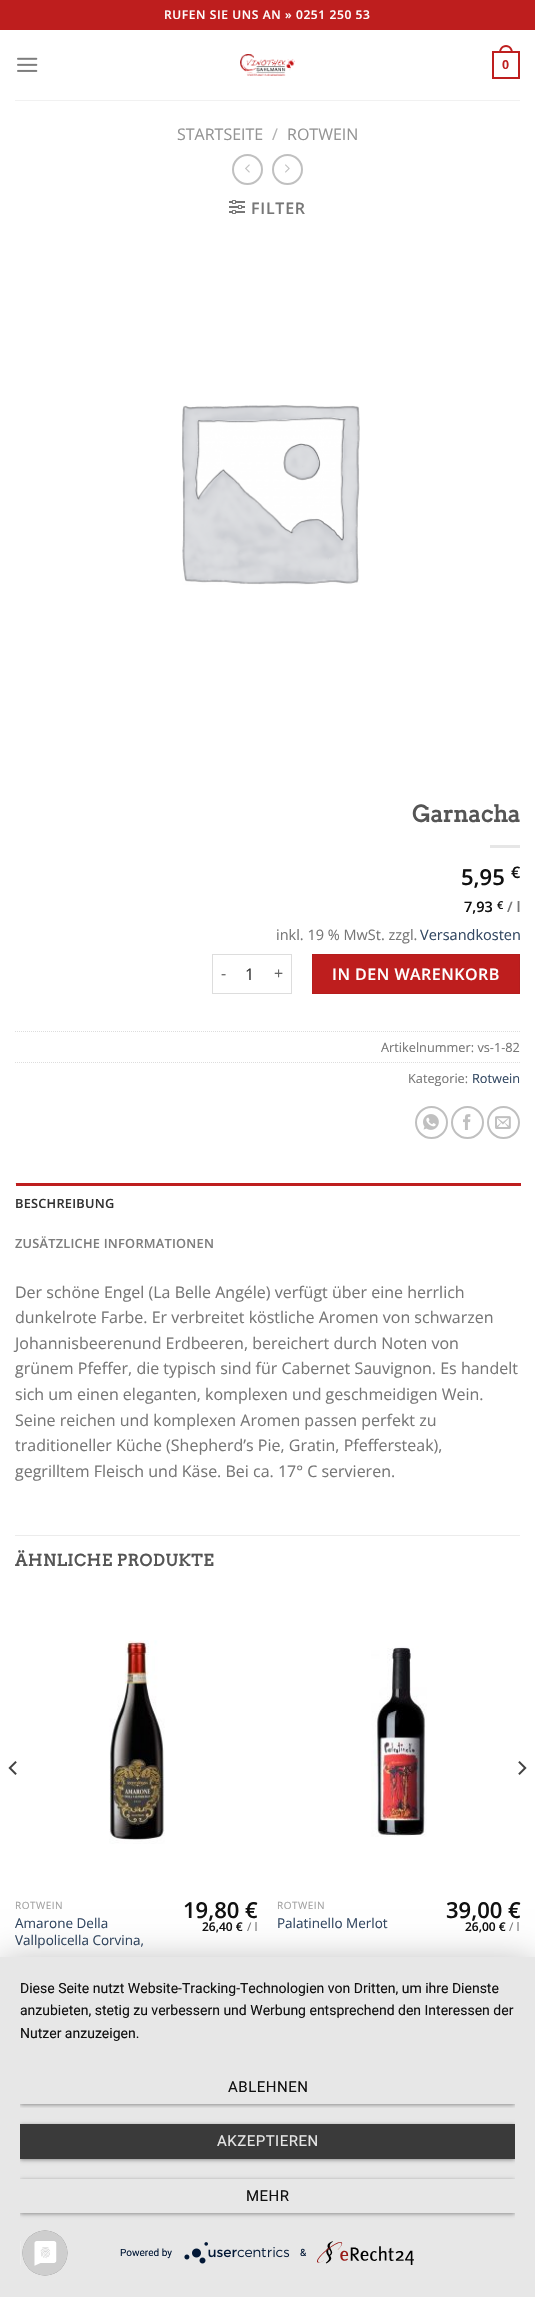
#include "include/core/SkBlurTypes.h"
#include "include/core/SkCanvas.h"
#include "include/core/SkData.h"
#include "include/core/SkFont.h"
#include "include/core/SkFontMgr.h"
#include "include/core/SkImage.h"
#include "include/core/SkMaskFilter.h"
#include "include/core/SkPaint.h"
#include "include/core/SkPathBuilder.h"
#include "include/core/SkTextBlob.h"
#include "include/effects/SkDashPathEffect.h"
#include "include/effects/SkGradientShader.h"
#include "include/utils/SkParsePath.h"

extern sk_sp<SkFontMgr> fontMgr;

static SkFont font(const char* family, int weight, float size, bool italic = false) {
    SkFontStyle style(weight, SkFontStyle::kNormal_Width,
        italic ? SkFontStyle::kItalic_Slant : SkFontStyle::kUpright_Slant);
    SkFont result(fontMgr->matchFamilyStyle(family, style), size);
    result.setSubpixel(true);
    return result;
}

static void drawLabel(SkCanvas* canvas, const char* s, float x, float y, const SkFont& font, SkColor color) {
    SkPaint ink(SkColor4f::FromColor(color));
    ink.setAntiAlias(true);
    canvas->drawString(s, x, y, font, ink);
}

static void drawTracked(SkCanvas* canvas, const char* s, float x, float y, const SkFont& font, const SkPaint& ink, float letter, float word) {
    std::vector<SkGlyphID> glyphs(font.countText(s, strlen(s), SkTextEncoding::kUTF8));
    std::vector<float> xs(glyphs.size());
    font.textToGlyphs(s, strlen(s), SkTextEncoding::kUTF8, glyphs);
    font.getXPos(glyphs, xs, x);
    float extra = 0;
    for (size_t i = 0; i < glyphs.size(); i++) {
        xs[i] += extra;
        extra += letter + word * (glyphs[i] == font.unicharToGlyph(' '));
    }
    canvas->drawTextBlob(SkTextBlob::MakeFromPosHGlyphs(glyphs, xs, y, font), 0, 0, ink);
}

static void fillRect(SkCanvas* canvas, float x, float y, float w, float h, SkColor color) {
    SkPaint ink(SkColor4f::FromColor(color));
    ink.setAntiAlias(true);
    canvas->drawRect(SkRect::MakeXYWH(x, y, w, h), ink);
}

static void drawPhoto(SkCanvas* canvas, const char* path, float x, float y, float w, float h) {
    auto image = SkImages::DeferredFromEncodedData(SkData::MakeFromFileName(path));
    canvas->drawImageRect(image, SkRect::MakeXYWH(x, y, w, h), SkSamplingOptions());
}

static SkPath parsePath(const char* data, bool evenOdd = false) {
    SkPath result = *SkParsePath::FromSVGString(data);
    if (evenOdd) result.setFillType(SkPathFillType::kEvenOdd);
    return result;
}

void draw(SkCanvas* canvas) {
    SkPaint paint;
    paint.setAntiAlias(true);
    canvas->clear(0xFFFFFFFF);
    fillRect(canvas, 0, 0, 535, 30, 0xFFBE1E1E);
    SkFont font1 = font("Open Sans", 600, 12);
    paint.setColor(0xFFFFFFFF);
    drawTracked(canvas, "RUFEN SIE UNS AN » 0251 250 53", 164, 19, font1, paint, 0.6f, 0);
    drawPhoto(canvas, "assets/img1.png", 17, 57, 21, 15);
    drawPhoto(canvas, "assets/img2.png", 240, 54, 55, 22);
    paint.setStroke(true);
    paint.setStrokeWidth(2);
    paint.setColor(0xFFBE1E1E);
    canvas->drawRect(SkRect::MakeXYWH(493, 52, 26, 26), paint);
    paint.setStroke(false);
    canvas->drawPath(parsePath("M506 45C510.5 45 513 49 513 53H499C499 49 501.5 45 506 45ZM506 47C509.5 47 511 50 511 53H501C501 50 502.5 47 506 47Z", true), paint);
    SkFont font2 = font("Liberation Sans", 700, 12.75f);
    drawLabel(canvas, "0", 502, 69, font2, 0xFFBE1E1E);
    fillRect(canvas, 15, 100, 505, 1, 0xFFF1F1F1);
    SkFont font3 = font("Open Sans", 400, 16);
    drawLabel(canvas, "STARTSEITE", 177, 140, font3, 0xFF949494);
    drawLabel(canvas, "/", 272, 140, font3, 0xFFB2B2B2);
    drawLabel(canvas, "ROTWEIN", 287, 140, font3, 0xFF949494);
    paint.setStroke(true);
    paint.setColor(0xFFC0C0C0);
    canvas->drawCircle(247.5f, 169.5f, 14.5f, paint);
    drawPhoto(canvas, "assets/img3.png", 245, 164, 5, 9);
    canvas->drawCircle(287.5f, 169.5f, 14.5f, paint);
    drawPhoto(canvas, "assets/img4.png", 285, 164, 5, 9);
    drawPhoto(canvas, "assets/img5.png", 229, 200, 16, 14);
    SkFont font4 = font("Open Sans", 600, 16);
    paint.setStroke(false);
    paint.setColor(0xFF777777);
    drawTracked(canvas, "FILTER", 251, 214, font4, paint, 0.75f, 0);
    drawPhoto(canvas, "assets/img6.png", 182, 405, 178, 180);
    SkFont font5 = font("Arvo", 700, 22.5f);
    drawLabel(canvas, "Garnacha", 412, 822, font5, 0xFF555555);
    fillRect(canvas, 490, 845, 30, 3, 0xFFE6E6E6);
    SkFont font6 = font("Open Sans", 600, 22);
    drawLabel(canvas, "5,95", 461, 885, font6, 0xFF111111);
    drawLabel(canvas, "€", 511, 878, font4, 0xFF111111);
    SkFont font7 = font("Open Sans", 600, 14.5f);
    drawLabel(canvas, "7,93", 464, 912, font7, 0xFF111111);
    SkFont font8 = font("Open Sans", 600, 11);
    drawLabel(canvas, "€", 497, 909, font8, 0xFF111111);
    drawLabel(canvas, "/ l", 507, 912, font7, 0xFF777777);
    SkFont font9 = font("Open Sans", 400, 14.5f);
    drawLabel(canvas, "inkl. 19 % MwSt. zzgl.", 276, 940, font9, 0xFF777777);
    drawLabel(canvas, "Versandkosten", 420, 940, font9, 0xFF334862);
    fillRect(canvas, 212, 954, 80, 1, 0xFFDDDDDD);
    fillRect(canvas, 212, 993, 54, 1, 0xFFDDDDDD);
    fillRect(canvas, 212, 954, 1, 40, 0xFFDDDDDD);
    drawLabel(canvas, "-", 221, 979, font3, 0xFF666666);
    drawLabel(canvas, "1", 245, 980, font3, 0xFF333333);
    fillRect(canvas, 291, 954, 1, 40, 0xFFDDDDDD);
    fillRect(canvas, 266, 993, 26, 1, 0xFFDDDDDD);
    drawLabel(canvas, "+", 274, 979, font3, 0xFF666666);
    paint.setColor(0xFFBE1E1E);
    canvas->drawRect(SkRect::MakeXYWH(312.5f, 954.5f, 207, 39), paint);
    paint.setStroke(true);
    paint.setStrokeWidth(1);
    paint.setColor(0xFFB51D1D);
    canvas->drawRect(SkRect::MakeXYWH(312.5f, 954.5f, 207, 39), paint);
    paint.setStroke(false);
    paint.setColor(0xFFFFFFFF);
    drawTracked(canvas, "IN DEN WARENKORB", 332, 980, font4, paint, 0.5f, 0);
    paint.setStroke(true);
    paint.setColor(0xFFDDDDDD);
    paint.setPathEffect(SkDashPathEffect::Make({{1, 1}}, 0));
    canvas->drawPath(parsePath("M15 1031.5H520"), paint);
    paint.setPathEffect(nullptr);
    SkFont font10 = font("Open Sans", 400, 12.75f);
    drawLabel(canvas, "Artikelnummer: vs-1-82", 381, 1052, font10, 0xFF777777);
    paint.setPathEffect(SkDashPathEffect::Make({{1, 1}}, 0));
    canvas->drawPath(parsePath("M15 1062.5H520"), paint);
    paint.setPathEffect(nullptr);
    drawLabel(canvas, "Kategorie:", 408, 1083, font10, 0xFF777777);
    drawLabel(canvas, "Rotwein", 472, 1083, font10, 0xFF334862);
    paint.setStrokeWidth(2);
    paint.setColor(0xFFC0C0C0);
    canvas->drawCircle(431.5f, 1122.5f, 15.5f, paint);
    drawPhoto(canvas, "assets/img7.png", 423, 1114, 16, 16);
    canvas->drawCircle(467.5f, 1122.5f, 15.5f, paint);
    drawPhoto(canvas, "assets/img8.png", 463, 1114, 8, 16);
    canvas->drawCircle(503.5f, 1122.5f, 15.5f, paint);
    drawPhoto(canvas, "assets/img9.png", 495, 1116, 16, 13);
    fillRect(canvas, 15, 1183, 1, 1, 0xFFECECEC);
    fillRect(canvas, 16, 1183, 505, 3, 0xFFBE1E1E);
    SkFont font11 = font("Open Sans", 600, 12.75f);
    paint.setStroke(false);
    paint.setColor(0xFF333333);
    drawTracked(canvas, "BESCHREIBUNG", 15, 1208, font11, paint, 0.25f, 0);
    paint.setColor(0xFF7D7D7D);
    drawTracked(canvas, "ZUSÄTZLICHE INFORMATIONEN", 15, 1248, font11, paint, 0.25f, 0);
    drawLabel(canvas, "Der schöne Engel (La Belle Angéle) verfügt über eine herrlich", 15, 1298, font3, 0xFF777777);
    drawLabel(canvas, "dunkelrote Farbe. Er verbreitet köstliche Aromen von schwarzen", 15, 1323, font3, 0xFF777777);
    drawLabel(canvas, "Johannisbeerenund Erdbeeren, bereichert durch Noten von", 15, 1349, font3, 0xFF777777);
    drawLabel(canvas, "grünem Pfeffer, die typisch sind für Cabernet Sauvignon. Es handelt", 15, 1374, font3, 0xFF777777);
    drawLabel(canvas, "sich um einen eleganten, komplexen und geschmeidigen Wein.", 15, 1400, font3, 0xFF777777);
    drawLabel(canvas, "Seine reichen und komplexen Aromen passen perfekt zu", 15, 1426, font3, 0xFF777777);
    drawLabel(canvas, "traditioneller Küche (Shepherd’s Pie, Gratin, Pfeffersteak),", 15, 1451, font3, 0xFF777777);
    drawLabel(canvas, "gegrilltem Fleisch und Käse. Bei ca. 17° C servieren.", 15, 1477, font3, 0xFF777777);
    fillRect(canvas, 15, 1535, 505, 1, 0xFFECECEC);
    SkFont font12 = font("Arvo", 700, 16);
    paint.setColor(0xFF555555);
    drawTracked(canvas, "ÄHNLICHE PRODUKTE", 15, 1566, font12, paint, 0.75f, 0);
    drawPhoto(canvas, "assets/img10.png", 8, 1761, 9, 14);
    drawPhoto(canvas, "assets/img11.png", 518, 1761, 9, 14);
    drawPhoto(canvas, "assets/img12.png", 109, 1640, 56, 204);
    SkFont font13 = font("Open Sans", 400, 10);
    paint.setColor(0xFFA0A0A0);
    drawTracked(canvas, "ROTWEIN", 15, 1909, font13, paint, 0.5f, 0);
    SkFont font14 = font("Open Sans", 400, 13.5f);
    drawLabel(canvas, "Amarone Della", 15, 1928, font14, 0xFF334862);
    drawLabel(canvas, "Vallpolicella Corvina,", 15, 1945, font14, 0xFF334862);
    drawLabel(canvas, "19,80 €", 183, 1918, font6, 0xFF111111);
    drawLabel(canvas, "26,40 €", 202, 1931, font1, 0xFF111111);
    SkFont font15 = font("Open Sans", 400, 12);
    drawLabel(canvas, "/ l", 247, 1931, font15, 0xFF777777);
    drawPhoto(canvas, "assets/img13.png", 371, 1646, 56, 191);
    drawTracked(canvas, "ROTWEIN", 277, 1909, font13, paint, 0.5f, 0);
    drawLabel(canvas, "Palatinello Merlot", 277, 1928, font14, 0xFF334862);
    drawLabel(canvas, "39,00 €", 446, 1918, font6, 0xFF111111);
    drawLabel(canvas, "26,00 €", 465, 1931, font1, 0xFF111111);
    drawLabel(canvas, "/ l", 509, 1931, font15, 0xFF777777);
    paint.setColor(0x4D000000);
    paint.setMaskFilter(SkMaskFilter::MakeBlur(kNormal_SkBlurStyle, 18));
    canvas->drawRect(SkRect::MakeXYWH(0, 1963, 535, 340), paint);
    paint.setMaskFilter(nullptr);
    fillRect(canvas, 0, 1957, 535, 340, 0xFFE7E7E7);
    SkFont font16 = font("Roboto", 400, 14);
    drawLabel(canvas, "Diese Seite nutzt Website-Tracking-Technologien von Dritten, um ihre Dienste", 20, 1993, font16, 0xFF111111);
    drawLabel(canvas, "anzubieten, stetig zu verbessern und Werbung entsprechend den Interessen der", 20, 2015, font16, 0xFF111111);
    drawLabel(canvas, "Nutzer anzuzeigen.", 20, 2038, font16, 0xFF111111);
    canvas->save();
    canvas->clipRect(SkRect::MakeXYWH(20, 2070, 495, 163));
    canvas->clipRect(SkRect::MakeXYWH(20, 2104, 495, 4));
    paint.setColor(0x66000000);
    paint.setMaskFilter(SkMaskFilter::MakeBlur(kNormal_SkBlurStyle, 2));
    canvas->drawRect(SkRect::MakeXYWH(20, 2071, 495, 34), paint);
    paint.setMaskFilter(nullptr);
    canvas->restore();
    SkFont font17 = font("Roboto", 400, 15);
    paint.setColor(0xFF111111);
    drawTracked(canvas, "ABLEHNEN", 228, 2092, font17, paint, 0.5f, 0);
    canvas->save();
    canvas->clipRect(SkRect::MakeXYWH(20, 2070, 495, 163));
    paint.setColor(0x66000000);
    paint.setMaskFilter(SkMaskFilter::MakeBlur(kNormal_SkBlurStyle, 2));
    canvas->drawRect(SkRect::MakeXYWH(20, 2125, 495, 35), paint);
    paint.setMaskFilter(nullptr);
    canvas->restore();
    fillRect(canvas, 20, 2124, 495, 35, 0xFF3A3A3A);
    paint.setColor(0xFFE6E6E6);
    drawTracked(canvas, "AKZEPTIEREN", 217, 2146, font17, paint, 0.5f, 0);
    canvas->save();
    canvas->clipRect(SkRect::MakeXYWH(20, 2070, 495, 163));
    canvas->clipPath(parsePath("M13 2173H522V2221H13ZM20 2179H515V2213H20Z", true), true);
    paint.setColor(0x66000000);
    paint.setMaskFilter(SkMaskFilter::MakeBlur(kNormal_SkBlurStyle, 2));
    canvas->drawRect(SkRect::MakeXYWH(20, 2180, 495, 34), paint);
    paint.setMaskFilter(nullptr);
    canvas->restore();
    paint.setColor(0xFF111111);
    drawTracked(canvas, "MEHR", 246, 2201, font17, paint, 0.5f, 0);
    SkFont font18 = font("Roboto", 400, 10);
    drawLabel(canvas, "Powered by", 120, 2256, font18, 0xFF021836);
    drawPhoto(canvas, "assets/img14.png", 184, 2242, 106, 22);
    drawLabel(canvas, "&", 300, 2256, font18, 0xFF021836);
    drawPhoto(canvas, "assets/img15.png", 317, 2241, 97, 24);
    fillRect(canvas, 20, 2241, 1, 24, 0xFFECECEC);
    drawPhoto(canvas, "assets/img16.png", 22, 2230, 46, 46);
}
